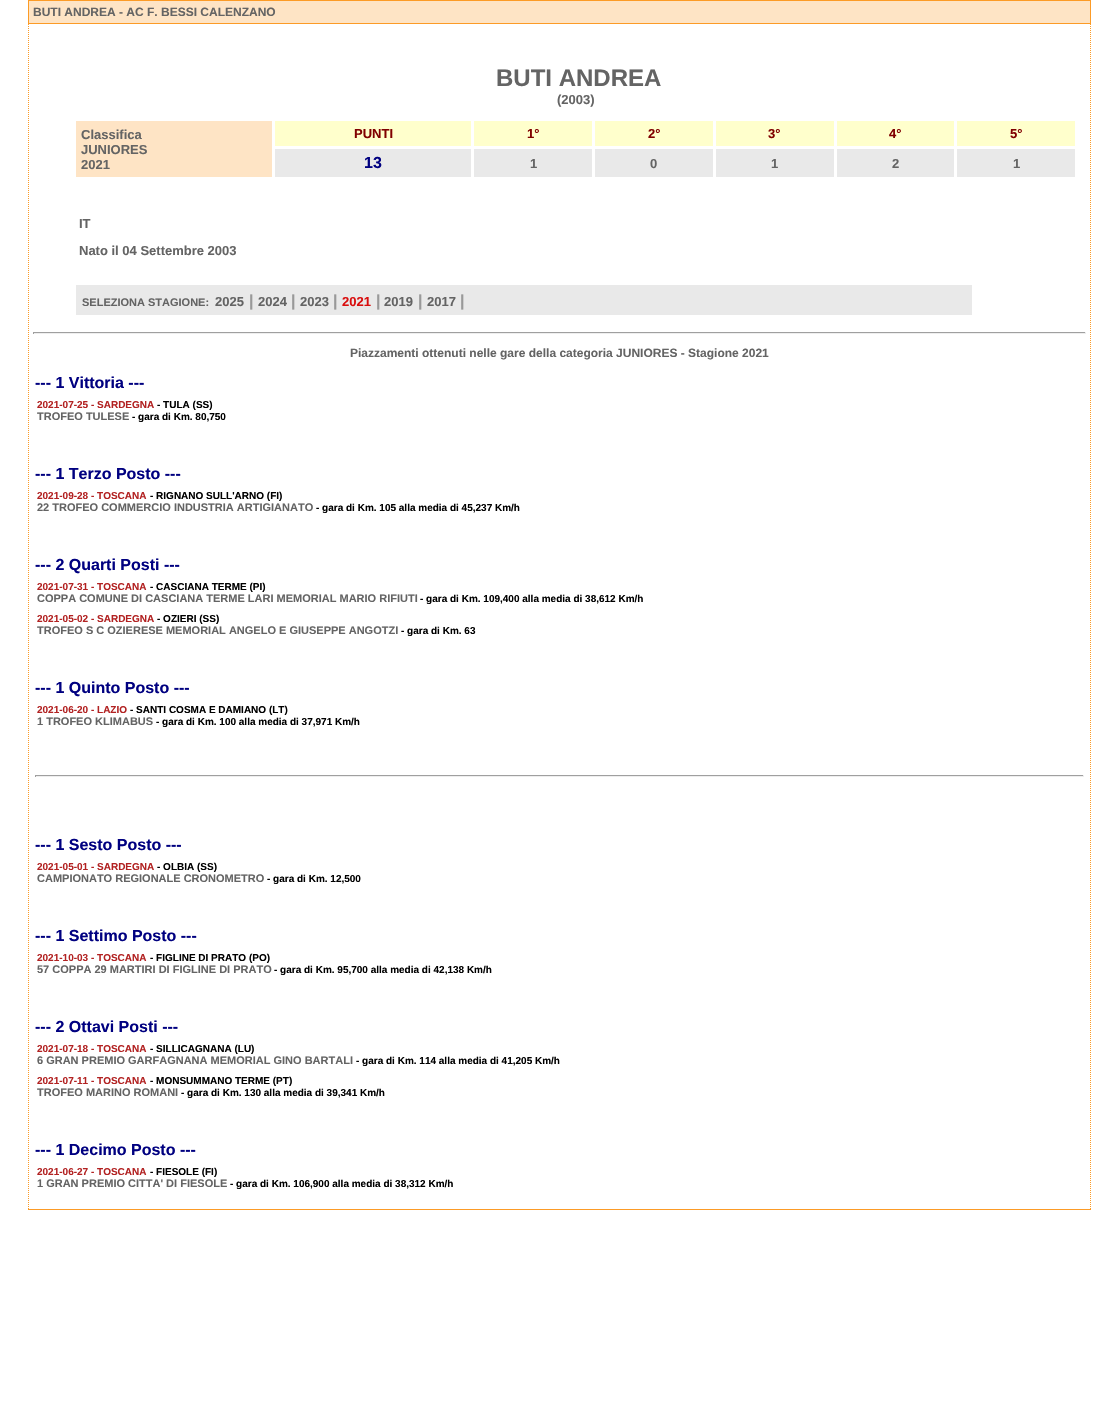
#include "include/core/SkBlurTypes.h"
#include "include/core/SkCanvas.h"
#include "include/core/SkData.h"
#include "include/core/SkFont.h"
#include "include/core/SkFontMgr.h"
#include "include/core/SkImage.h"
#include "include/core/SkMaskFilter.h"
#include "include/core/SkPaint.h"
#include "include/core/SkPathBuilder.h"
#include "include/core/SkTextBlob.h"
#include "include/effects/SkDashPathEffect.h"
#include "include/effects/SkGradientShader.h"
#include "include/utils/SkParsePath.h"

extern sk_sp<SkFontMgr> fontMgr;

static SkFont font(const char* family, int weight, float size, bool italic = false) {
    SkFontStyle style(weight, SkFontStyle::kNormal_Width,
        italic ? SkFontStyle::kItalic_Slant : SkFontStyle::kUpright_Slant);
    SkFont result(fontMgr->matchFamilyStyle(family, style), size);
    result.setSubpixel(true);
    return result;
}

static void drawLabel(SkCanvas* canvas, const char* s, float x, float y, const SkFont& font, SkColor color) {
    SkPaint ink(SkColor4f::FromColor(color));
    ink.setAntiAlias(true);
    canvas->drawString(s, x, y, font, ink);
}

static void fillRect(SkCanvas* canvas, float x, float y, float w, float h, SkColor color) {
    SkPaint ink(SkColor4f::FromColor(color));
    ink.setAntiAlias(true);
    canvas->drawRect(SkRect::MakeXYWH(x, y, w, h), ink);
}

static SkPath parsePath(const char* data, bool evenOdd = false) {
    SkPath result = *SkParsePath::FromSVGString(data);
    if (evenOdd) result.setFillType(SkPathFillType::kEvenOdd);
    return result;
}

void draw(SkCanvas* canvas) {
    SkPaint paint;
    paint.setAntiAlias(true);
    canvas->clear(0xFFFFFFFF);
    paint.setColor(0xFFFEE4C5);
    canvas->drawRect(SkRect::MakeXYWH(28.5f, 0.5f, 1062, 23), paint);
    paint.setStroke(true);
    paint.setStrokeWidth(1);
    paint.setColor(0xFFFC9B26);
    canvas->drawRect(SkRect::MakeXYWH(28.5f, 0.5f, 1062, 23), paint);
    SkFont font1 = font("Liberation Sans", 700, 12);
    drawLabel(canvas, "BUTI ANDREA - AC F. BESSI CALENZANO", 33, 16, font1, 0xFF646464);
    paint.setPathEffect(SkDashPathEffect::Make({{1, 1}}, 0));
    canvas->drawPath(parsePath("M1090.5 24V1210"), paint);
    paint.setPathEffect(nullptr);
    fillRect(canvas, 28, 1209, 1063, 1, 0xFFFC9B26);
    paint.setPathEffect(SkDashPathEffect::Make({{1, 1}}, 0));
    canvas->drawPath(parsePath("M28.5 24V1210"), paint);
    paint.setPathEffect(nullptr);
    SkFont font2 = font("Liberation Sans", 700, 24);
    drawLabel(canvas, "BUTI ANDREA", 496, 86, font2, 0xFF646464);
    SkFont font3 = font("Liberation Sans", 700, 13);
    drawLabel(canvas, "(2003)", 557, 104, font3, 0xFF646464);
    fillRect(canvas, 76, 121, 196, 56, 0xFFFEE4C5);
    drawLabel(canvas, "Classifica", 81, 139, font3, 0xFF646464);
    drawLabel(canvas, "JUNIORES", 81, 154, font3, 0xFF646464);
    drawLabel(canvas, "2021", 81, 169, font3, 0xFF646464);
    fillRect(canvas, 275, 121, 196, 25, 0xFFFFFFCC);
    drawLabel(canvas, "PUNTI", 354, 138, font3, 0xFF800000);
    fillRect(canvas, 474, 121, 118, 25, 0xFFFFFFCC);
    drawLabel(canvas, "1°", 527, 138, font3, 0xFF800000);
    fillRect(canvas, 595, 121, 118, 25, 0xFFFFFFCC);
    drawLabel(canvas, "2°", 648, 138, font3, 0xFF800000);
    fillRect(canvas, 716, 121, 118, 25, 0xFFFFFFCC);
    drawLabel(canvas, "3°", 768, 138, font3, 0xFF800000);
    fillRect(canvas, 837, 121, 117, 25, 0xFFFFFFCC);
    drawLabel(canvas, "4°", 889, 138, font3, 0xFF800000);
    fillRect(canvas, 957, 121, 118, 25, 0xFFFFFFCC);
    drawLabel(canvas, "5°", 1010, 138, font3, 0xFF800000);
    fillRect(canvas, 275, 149, 196, 28, 0xFFE9E9E9);
    SkFont font4 = font("Liberation Sans", 700, 16);
    drawLabel(canvas, "13", 364, 168, font4, 0xFF000080);
    fillRect(canvas, 474, 149, 118, 28, 0xFFE9E9E9);
    drawLabel(canvas, "1", 530, 168, font3, 0xFF646464);
    fillRect(canvas, 595, 149, 118, 28, 0xFFE9E9E9);
    drawLabel(canvas, "0", 650, 168, font3, 0xFF646464);
    fillRect(canvas, 716, 149, 118, 28, 0xFFE9E9E9);
    drawLabel(canvas, "1", 771, 168, font3, 0xFF646464);
    fillRect(canvas, 837, 149, 117, 28, 0xFFE9E9E9);
    drawLabel(canvas, "2", 892, 168, font3, 0xFF646464);
    fillRect(canvas, 957, 149, 118, 28, 0xFFE9E9E9);
    drawLabel(canvas, "1", 1013, 168, font3, 0xFF646464);
    drawLabel(canvas, "IT", 79, 228, font3, 0xFF646464);
    drawLabel(canvas, "Nato il 04 Settembre 2003", 79, 255, font3, 0xFF646464);
    fillRect(canvas, 76, 285, 896, 30, 0xFFE9E9E9);
    SkFont font5 = font("Liberation Sans", 700, 11);
    drawLabel(canvas, "SELEZIONA STAGIONE:", 82, 306, font5, 0xFF646464);
    drawLabel(canvas, "2025", 215, 306, font3, 0xFF646464);
    drawLabel(canvas, "|", 249, 306, font4, 0xFF999999);
    drawLabel(canvas, "2024", 258, 306, font3, 0xFF646464);
    drawLabel(canvas, "|", 291, 306, font4, 0xFF999999);
    drawLabel(canvas, "2023", 300, 306, font3, 0xFF646464);
    drawLabel(canvas, "|", 333, 306, font4, 0xFF999999);
    drawLabel(canvas, "2021", 342, 306, font3, 0xFFD90F0F);
    drawLabel(canvas, "|", 376, 306, font4, 0xFF999999);
    drawLabel(canvas, "2019", 384, 306, font3, 0xFF646464);
    drawLabel(canvas, "|", 418, 306, font4, 0xFF999999);
    drawLabel(canvas, "2017", 427, 306, font3, 0xFF646464);
    drawLabel(canvas, "|", 460, 306, font4, 0xFF999999);
    fillRect(canvas, 33, 332, 1053, 1, 0xFF9F9F9F);
    fillRect(canvas, 1085, 332, 1, 2, 0xFFEEEEEE);
    fillRect(canvas, 33, 333, 1053, 1, 0xFFEEEEEE);
    fillRect(canvas, 33, 332, 1, 2, 0xFF9F9F9F);
    drawLabel(canvas, "Piazzamenti ottenuti nelle gare della categoria JUNIORES - Stagione 2021", 350, 357, font1, 0xFF646464);
    drawLabel(canvas, "--- 1 Vittoria ---", 35, 388, font4, 0xFF000080);
    SkFont font6 = font("Liberation Sans", 700, 10);
    drawLabel(canvas, "2021-07-25 - SARDEGNA", 37, 408, font6, 0xFFB22222);
    drawLabel(canvas, "- TULA (SS)", 157, 408, font6, 0xFF000000);
    drawLabel(canvas, "TROFEO TULESE", 37, 420, font5, 0xFF646464);
    drawLabel(canvas, "- gara di Km. 80,750", 132, 420, font6, 0xFF000000);
    drawLabel(canvas, "--- 1 Terzo Posto ---", 35, 479, font4, 0xFF000080);
    drawLabel(canvas, "2021-09-28 - TOSCANA", 37, 499, font6, 0xFFB22222);
    drawLabel(canvas, "- RIGNANO SULL'ARNO (FI)", 150, 499, font6, 0xFF000000);
    drawLabel(canvas, "22 TROFEO COMMERCIO INDUSTRIA ARTIGIANATO", 37, 511, font5, 0xFF646464);
    drawLabel(canvas, "- gara di Km. 105 alla media di 45,237 Km/h", 316, 511, font6, 0xFF000000);
    drawLabel(canvas, "--- 2 Quarti Posti ---", 35, 570, font4, 0xFF000080);
    drawLabel(canvas, "2021-07-31 - TOSCANA", 37, 590, font6, 0xFFB22222);
    drawLabel(canvas, "- CASCIANA TERME (PI)", 150, 590, font6, 0xFF000000);
    drawLabel(canvas, "COPPA COMUNE DI CASCIANA TERME LARI MEMORIAL MARIO RIFIUTI", 37, 602, font5, 0xFF646464);
    drawLabel(canvas, "- gara di Km. 109,400 alla media di 38,612 Km/h", 420, 602, font6, 0xFF000000);
    drawLabel(canvas, "2021-05-02 - SARDEGNA", 37, 622, font6, 0xFFB22222);
    drawLabel(canvas, "- OZIERI (SS)", 157, 622, font6, 0xFF000000);
    drawLabel(canvas, "TROFEO S C OZIERESE MEMORIAL ANGELO E GIUSEPPE ANGOTZI", 37, 634, font5, 0xFF646464);
    drawLabel(canvas, "- gara di Km. 63", 401, 634, font6, 0xFF000000);
    drawLabel(canvas, "--- 1 Quinto Posto ---", 35, 693, font4, 0xFF000080);
    drawLabel(canvas, "2021-06-20 - LAZIO", 37, 713, font6, 0xFFB22222);
    drawLabel(canvas, "- SANTI COSMA E DAMIANO (LT)", 130, 713, font6, 0xFF000000);
    drawLabel(canvas, "1 TROFEO KLIMABUS", 37, 725, font5, 0xFF646464);
    drawLabel(canvas, "- gara di Km. 100 alla media di 37,971 Km/h", 156, 725, font6, 0xFF000000);
    fillRect(canvas, 35, 775, 1049, 1, 0xFF9F9F9F);
    fillRect(canvas, 1083, 775, 1, 2, 0xFFEEEEEE);
    fillRect(canvas, 35, 776, 1049, 1, 0xFFEEEEEE);
    fillRect(canvas, 35, 775, 1, 2, 0xFF9F9F9F);
    drawLabel(canvas, "--- 1 Sesto Posto ---", 35, 850, font4, 0xFF000080);
    drawLabel(canvas, "2021-05-01 - SARDEGNA", 37, 870, font6, 0xFFB22222);
    drawLabel(canvas, "- OLBIA (SS)", 157, 870, font6, 0xFF000000);
    drawLabel(canvas, "CAMPIONATO REGIONALE CRONOMETRO", 37, 882, font5, 0xFF646464);
    drawLabel(canvas, "- gara di Km. 12,500", 267, 882, font6, 0xFF000000);
    drawLabel(canvas, "--- 1 Settimo Posto ---", 35, 941, font4, 0xFF000080);
    drawLabel(canvas, "2021-10-03 - TOSCANA", 37, 961, font6, 0xFFB22222);
    drawLabel(canvas, "- FIGLINE DI PRATO (PO)", 150, 961, font6, 0xFF000000);
    drawLabel(canvas, "57 COPPA 29 MARTIRI DI FIGLINE DI PRATO", 37, 973, font5, 0xFF646464);
    drawLabel(canvas, "- gara di Km. 95,700 alla media di 42,138 Km/h", 274, 973, font6, 0xFF000000);
    drawLabel(canvas, "--- 2 Ottavi Posti ---", 35, 1032, font4, 0xFF000080);
    drawLabel(canvas, "2021-07-18 - TOSCANA", 37, 1052, font6, 0xFFB22222);
    drawLabel(canvas, "- SILLICAGNANA (LU)", 150, 1052, font6, 0xFF000000);
    drawLabel(canvas, "6 GRAN PREMIO GARFAGNANA MEMORIAL GINO BARTALI", 37, 1064, font5, 0xFF646464);
    drawLabel(canvas, "- gara di Km. 114 alla media di 41,205 Km/h", 356, 1064, font6, 0xFF000000);
    drawLabel(canvas, "2021-07-11 - TOSCANA", 37, 1084, font6, 0xFFB22222);
    drawLabel(canvas, "- MONSUMMANO TERME (PT)", 150, 1084, font6, 0xFF000000);
    drawLabel(canvas, "TROFEO MARINO ROMANI", 37, 1096, font5, 0xFF646464);
    drawLabel(canvas, "- gara di Km. 130 alla media di 39,341 Km/h", 181, 1096, font6, 0xFF000000);
    drawLabel(canvas, "--- 1 Decimo Posto ---", 35, 1155, font4, 0xFF000080);
    drawLabel(canvas, "2021-06-27 - TOSCANA", 37, 1175, font6, 0xFFB22222);
    drawLabel(canvas, "- FIESOLE (FI)", 150, 1175, font6, 0xFF000000);
    drawLabel(canvas, "1 GRAN PREMIO CITTA' DI FIESOLE", 37, 1187, font5, 0xFF646464);
    drawLabel(canvas, "- gara di Km. 106,900 alla media di 38,312 Km/h", 230, 1187, font6, 0xFF000000);
}
